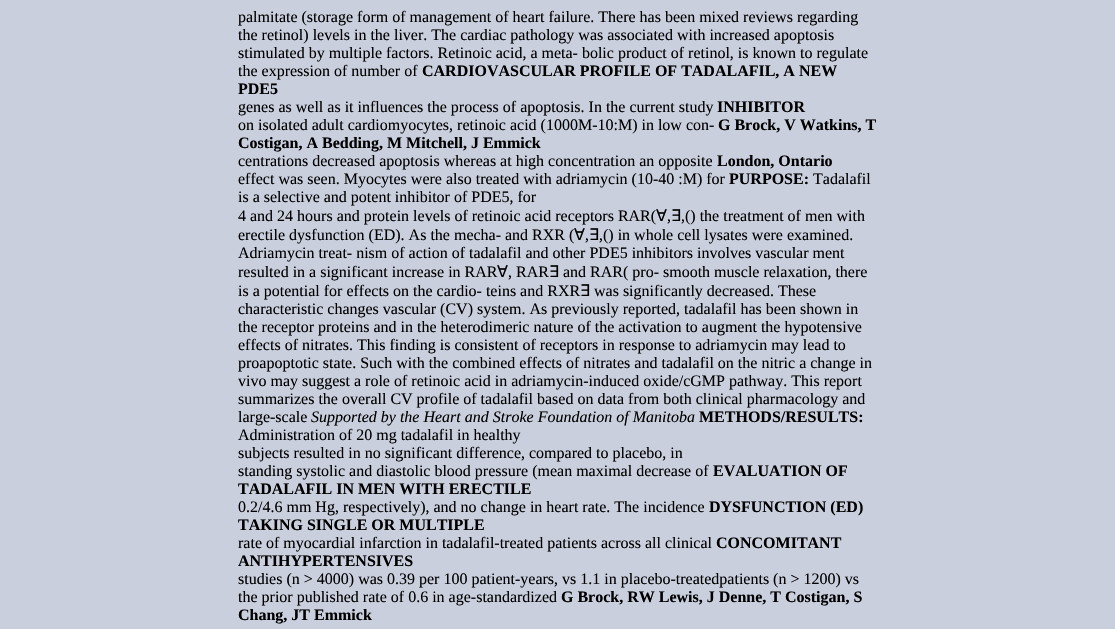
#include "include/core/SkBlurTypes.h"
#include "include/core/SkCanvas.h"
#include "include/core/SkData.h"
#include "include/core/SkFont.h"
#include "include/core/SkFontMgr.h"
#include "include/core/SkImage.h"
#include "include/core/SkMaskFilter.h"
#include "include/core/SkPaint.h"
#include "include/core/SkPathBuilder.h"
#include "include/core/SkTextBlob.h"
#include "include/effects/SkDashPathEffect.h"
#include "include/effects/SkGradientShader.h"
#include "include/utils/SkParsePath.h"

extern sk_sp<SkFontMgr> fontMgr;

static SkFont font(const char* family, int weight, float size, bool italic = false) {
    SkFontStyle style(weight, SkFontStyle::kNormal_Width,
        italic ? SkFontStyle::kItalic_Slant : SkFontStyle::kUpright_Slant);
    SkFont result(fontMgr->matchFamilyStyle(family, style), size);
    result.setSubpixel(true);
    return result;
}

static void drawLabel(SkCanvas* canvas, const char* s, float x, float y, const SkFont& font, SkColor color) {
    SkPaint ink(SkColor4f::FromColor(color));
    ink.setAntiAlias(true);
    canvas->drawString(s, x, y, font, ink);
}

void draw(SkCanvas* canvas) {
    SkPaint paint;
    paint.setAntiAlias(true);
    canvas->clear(0xFFCACFDE);
    SkFont font1 = font("Liberation Serif", 400, 16);
    drawLabel(canvas, "palmitate (storage form of management of heart failure. There has been mixed reviews regarding", 238, 22, font1, 0xFF000000);
    drawLabel(canvas, "the retinol) levels in the liver. The cardiac pathology was associated with increased apoptosis", 238, 40, font1, 0xFF000000);
    drawLabel(canvas, "stimulated by multiple factors. Retinoic acid, a meta- bolic product of retinol, is known to regulate", 238, 58, font1, 0xFF000000);
    drawLabel(canvas, "the expression of number of", 238, 76, font1, 0xFF000000);
    SkFont font2 = font("Liberation Serif", 700, 16);
    drawLabel(canvas, "CARDIOVASCULAR PROFILE OF TADALAFIL, A NEW", 422, 76, font2, 0xFF000000);
    drawLabel(canvas, "PDE5", 238, 94, font2, 0xFF000000);
    drawLabel(canvas, "genes as well as it influences the process of apoptosis. In the current study", 238, 112, font1, 0xFF000000);
    drawLabel(canvas, "INHIBITOR", 717, 112, font2, 0xFF000000);
    drawLabel(canvas, "on isolated adult cardiomyocytes, retinoic acid (1000M-10:M) in low con-", 238, 130, font1, 0xFF000000);
    drawLabel(canvas, "G Brock, V Watkins, T", 718, 130, font2, 0xFF000000);
    drawLabel(canvas, "Costigan, A Bedding, M Mitchell, J Emmick", 238, 148, font2, 0xFF000000);
    drawLabel(canvas, "centrations decreased apoptosis whereas at high concentration an opposite", 238, 166, font1, 0xFF000000);
    drawLabel(canvas, "London, Ontario", 717, 166, font2, 0xFF000000);
    drawLabel(canvas, "effect was seen. Myocytes were also treated with adriamycin (10-40 :M) for", 238, 184, font1, 0xFF000000);
    drawLabel(canvas, "PURPOSE:", 729, 184, font2, 0xFF000000);
    drawLabel(canvas, "Tadalafil", 813, 184, font1, 0xFF000000);
    drawLabel(canvas, "is a selective and potent inhibitor of PDE5, for", 238, 202, font1, 0xFF000000);
    drawLabel(canvas, "4 and 24 hours and protein levels of retinoic acid receptors RAR(", 238, 221, font1, 0xFF000000);
    SkFont font3 = font("DejaVu Sans", 400, 16);
    drawLabel(canvas, "∀", 656, 221, font3, 0xFF000000);
    drawLabel(canvas, ",", 667, 221, font1, 0xFF000000);
    drawLabel(canvas, "∃", 671, 221, font3, 0xFF000000);
    drawLabel(canvas, ",() the treatment of men with", 681, 221, font1, 0xFF000000);
    drawLabel(canvas, "erectile dysfunction (ED). As the mecha- and RXR (", 238, 240, font1, 0xFF000000);
    drawLabel(canvas, "∀", 574, 240, font3, 0xFF000000);
    drawLabel(canvas, ",", 585, 240, font1, 0xFF000000);
    drawLabel(canvas, "∃", 589, 240, font3, 0xFF000000);
    drawLabel(canvas, ",() in whole cell lysates were examined.", 599, 240, font1, 0xFF000000);
    drawLabel(canvas, "Adriamycin treat- nism of action of tadalafil and other PDE5 inhibitors involves vascular ment", 238, 258, font1, 0xFF000000);
    drawLabel(canvas, "resulted in a significant increase in RAR", 238, 277, font1, 0xFF000000);
    drawLabel(canvas, "∀", 497, 277, font3, 0xFF000000);
    drawLabel(canvas, ", RAR", 508, 277, font1, 0xFF000000);
    drawLabel(canvas, "∃", 549, 277, font3, 0xFF000000);
    drawLabel(canvas, "and RAR( pro- smooth muscle relaxation, there", 563, 277, font1, 0xFF000000);
    drawLabel(canvas, "is a potential for effects on the cardio- teins and RXR", 238, 296, font1, 0xFF000000);
    drawLabel(canvas, "∃", 580, 296, font3, 0xFF000000);
    drawLabel(canvas, "was significantly decreased. These", 594, 296, font1, 0xFF000000);
    drawLabel(canvas, "characteristic changes vascular (CV) system. As previously reported, tadalafil has been shown in", 238, 314, font1, 0xFF000000);
    drawLabel(canvas, "the receptor proteins and in the heterodimeric nature of the activation to augment the hypotensive", 238, 332, font1, 0xFF000000);
    drawLabel(canvas, "effects of nitrates. This finding is consistent of receptors in response to adriamycin may lead to", 238, 350, font1, 0xFF000000);
    drawLabel(canvas, "proapoptotic state. Such with the combined effects of nitrates and tadalafil on the nitric a change in", 238, 368, font1, 0xFF000000);
    drawLabel(canvas, "vivo may suggest a role of retinoic acid in adriamycin-induced oxide/cGMP pathway. This report", 238, 386, font1, 0xFF000000);
    drawLabel(canvas, "summarizes the overall CV profile of tadalafil based on data from both clinical pharmacology and", 238, 404, font1, 0xFF000000);
    drawLabel(canvas, "large-scale", 238, 422, font1, 0xFF000000);
    SkFont font4 = font("Liberation Serif", 400, 16, true);
    drawLabel(canvas, "Supported by the Heart and Stroke Foundation of Manitoba", 311, 422, font4, 0xFF000000);
    drawLabel(canvas, "METHODS/RESULTS:", 699, 422, font2, 0xFF000000);
    drawLabel(canvas, "Administration of 20 mg tadalafil in healthy", 238, 440, font1, 0xFF000000);
    drawLabel(canvas, "subjects resulted in no significant difference, compared to placebo, in", 238, 458, font1, 0xFF000000);
    drawLabel(canvas, "standing systolic and diastolic blood pressure (mean maximal decrease of", 238, 476, font1, 0xFF000000);
    drawLabel(canvas, "EVALUATION OF", 713, 476, font2, 0xFF000000);
    drawLabel(canvas, "TADALAFIL IN MEN WITH ERECTILE", 238, 494, font2, 0xFF000000);
    drawLabel(canvas, "0.2/4.6 mm Hg, respectively), and no change in heart rate. The incidence", 238, 512, font1, 0xFF000000);
    drawLabel(canvas, "DYSFUNCTION (ED)", 709, 512, font2, 0xFF000000);
    drawLabel(canvas, "TAKING SINGLE OR MULTIPLE", 238, 530, font2, 0xFF000000);
    drawLabel(canvas, "rate of myocardial infarction in tadalafil-treated patients across all clinical", 238, 548, font1, 0xFF000000);
    drawLabel(canvas, "CONCOMITANT", 716, 548, font2, 0xFF000000);
    drawLabel(canvas, "ANTIHYPERTENSIVES", 238, 566, font2, 0xFF000000);
    drawLabel(canvas, "studies (n > 4000) was 0.39 per 100 patient-years, vs 1.1 in placebo-treatedpatients (n > 1200) vs", 238, 584, font1, 0xFF000000);
    drawLabel(canvas, "the prior published rate of 0.6 in age-standardized", 238, 602, font1, 0xFF000000);
    drawLabel(canvas, "G Brock, RW Lewis, J Denne, T Costigan, S", 561, 602, font2, 0xFF000000);
    drawLabel(canvas, "Chang, JT Emmick", 238, 620, font2, 0xFF000000);
}
